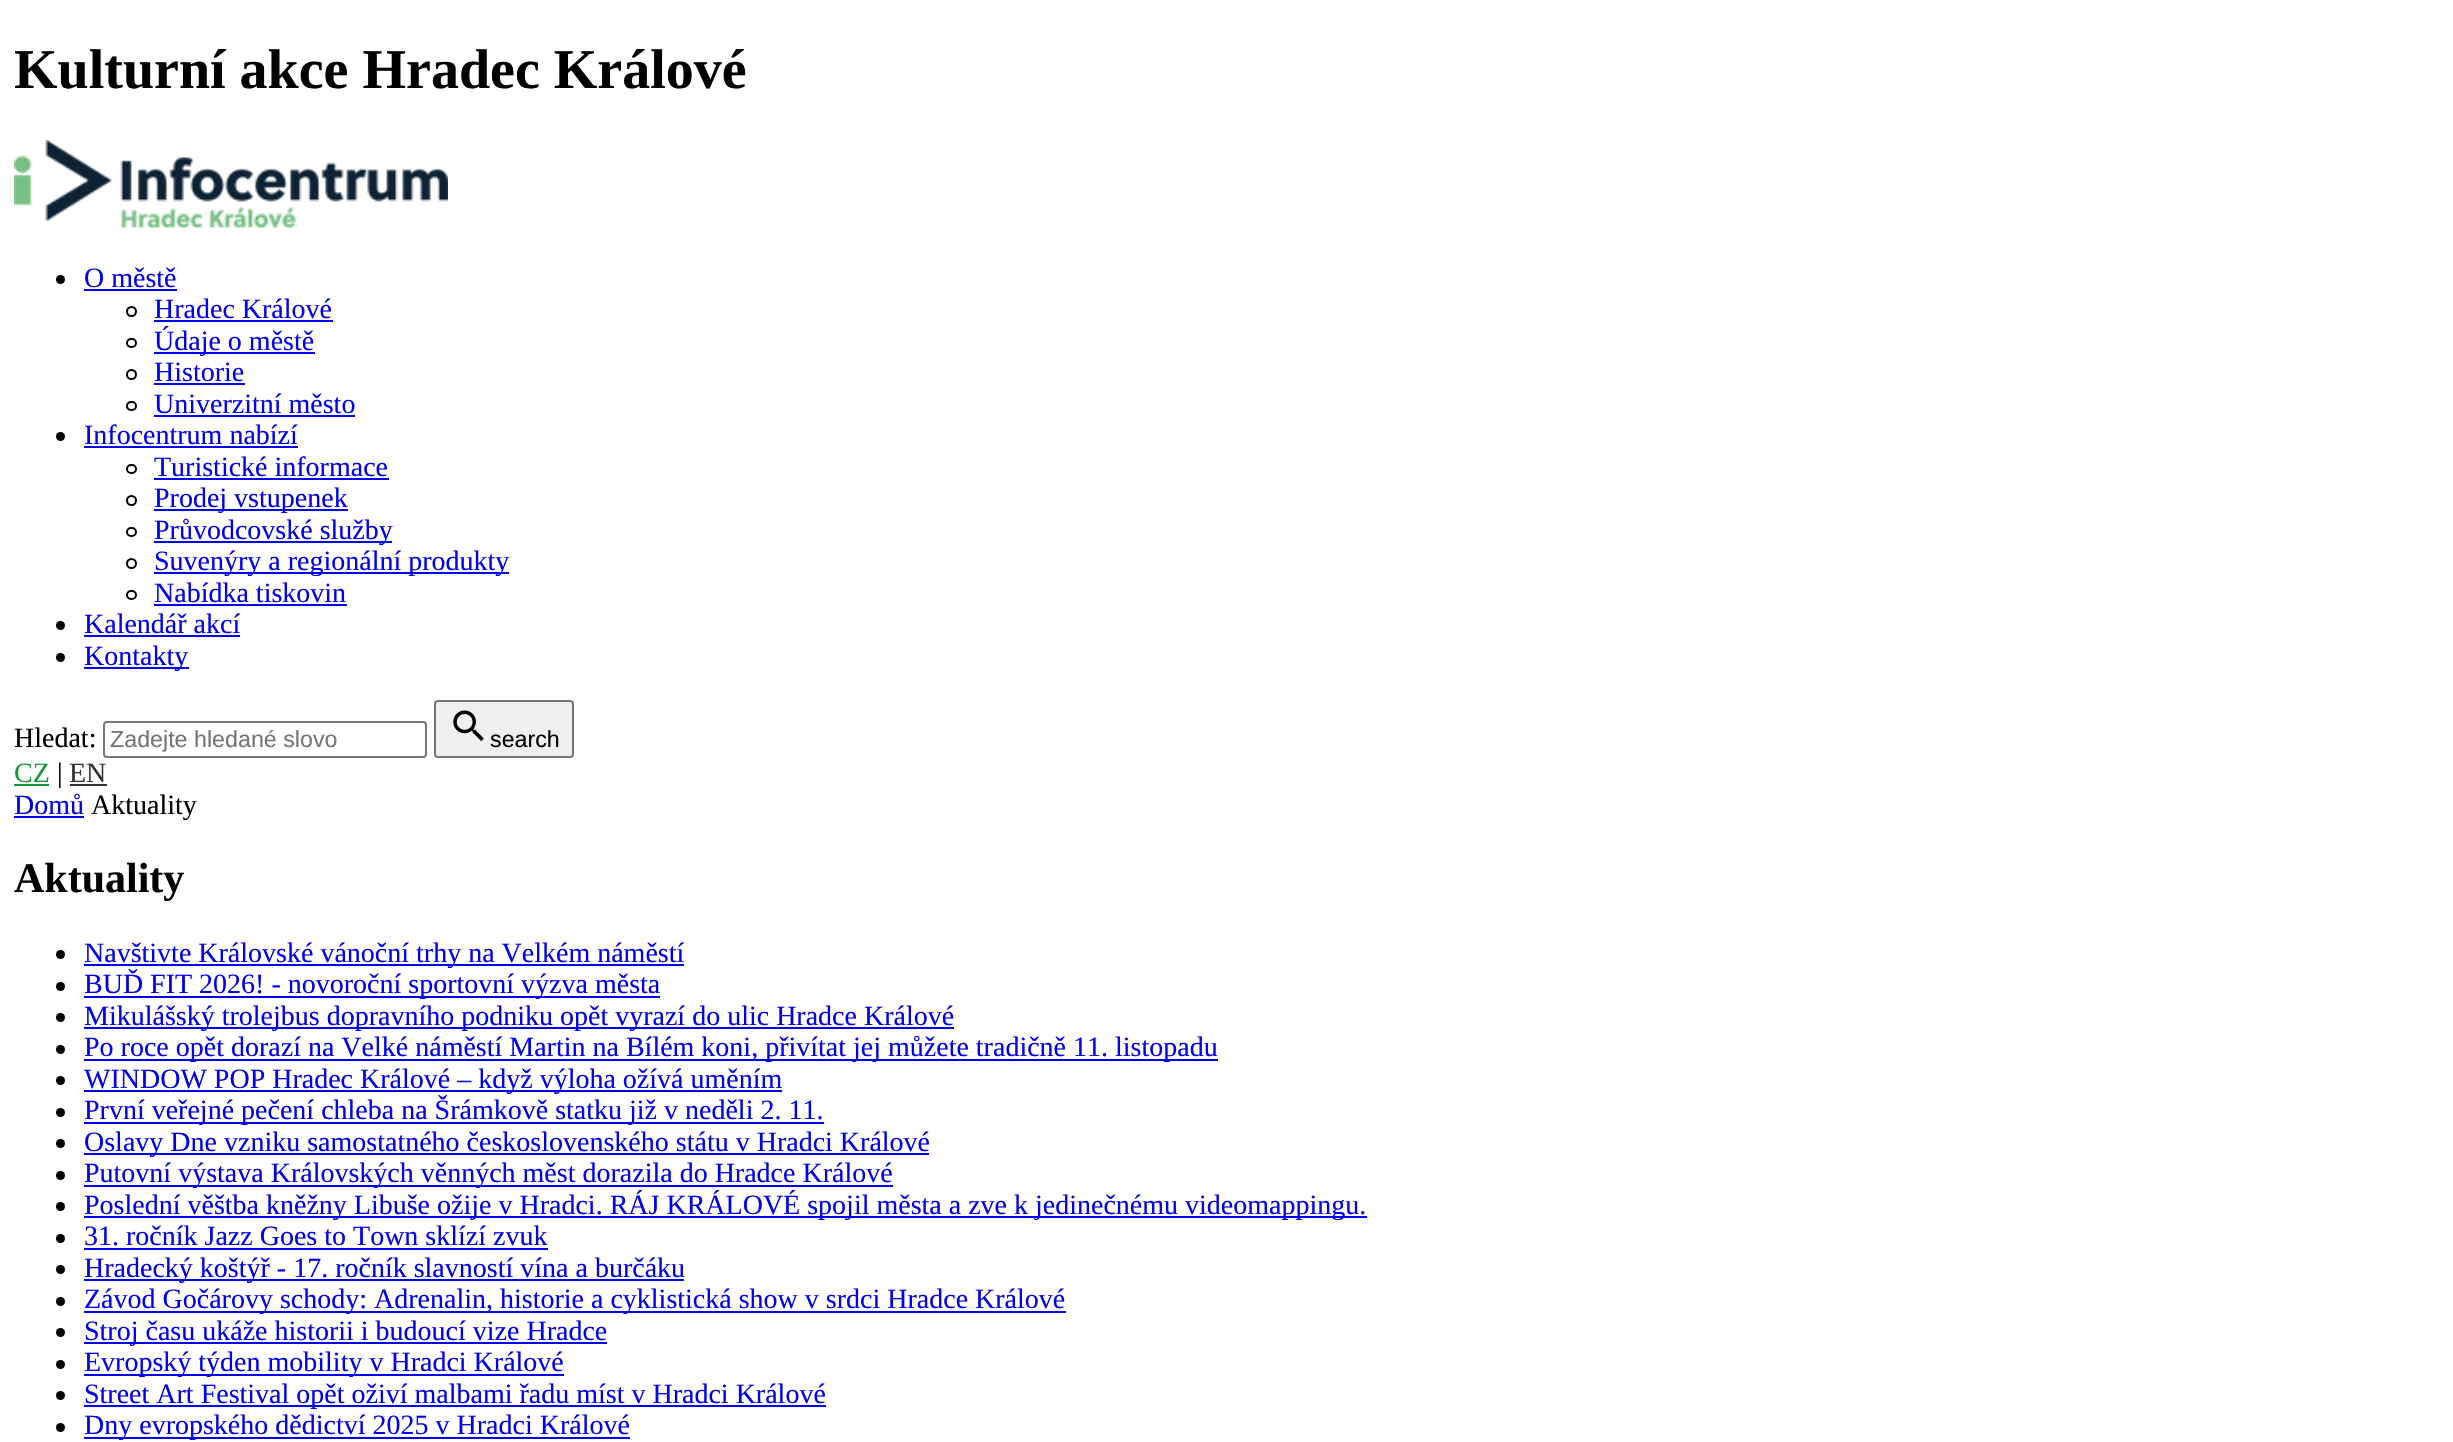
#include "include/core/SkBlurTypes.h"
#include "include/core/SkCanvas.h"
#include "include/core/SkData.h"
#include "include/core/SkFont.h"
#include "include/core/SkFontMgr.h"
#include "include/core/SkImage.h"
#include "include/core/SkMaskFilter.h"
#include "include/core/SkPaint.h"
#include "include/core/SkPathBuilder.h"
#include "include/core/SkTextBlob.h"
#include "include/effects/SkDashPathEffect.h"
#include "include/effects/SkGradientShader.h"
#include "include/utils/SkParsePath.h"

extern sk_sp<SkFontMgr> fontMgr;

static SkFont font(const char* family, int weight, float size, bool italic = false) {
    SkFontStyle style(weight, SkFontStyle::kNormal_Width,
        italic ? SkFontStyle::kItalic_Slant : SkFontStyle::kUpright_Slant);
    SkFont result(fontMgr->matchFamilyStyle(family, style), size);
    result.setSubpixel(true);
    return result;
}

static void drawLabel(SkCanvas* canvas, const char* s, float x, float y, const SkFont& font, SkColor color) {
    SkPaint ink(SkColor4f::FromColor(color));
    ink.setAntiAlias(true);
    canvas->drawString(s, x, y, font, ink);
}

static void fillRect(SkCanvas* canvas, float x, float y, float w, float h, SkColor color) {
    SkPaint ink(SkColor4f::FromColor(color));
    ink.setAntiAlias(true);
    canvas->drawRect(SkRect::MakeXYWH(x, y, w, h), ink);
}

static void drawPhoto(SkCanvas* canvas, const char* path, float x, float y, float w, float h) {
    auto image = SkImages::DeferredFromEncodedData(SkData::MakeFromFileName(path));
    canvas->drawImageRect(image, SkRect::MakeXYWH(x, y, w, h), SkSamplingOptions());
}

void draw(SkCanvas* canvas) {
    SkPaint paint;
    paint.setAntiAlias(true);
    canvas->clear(0xFFFFFFFF);
    SkFont font1 = font("Liberation Serif", 700, 56);
    drawLabel(canvas, "Kulturní akce Hradec Králové", 14, 88, font1, 0xFF000000);
    drawPhoto(canvas, "assets/img1.png", 14, 140, 434, 88);
    paint.setColor(0xFF000000);
    canvas->drawCircle(60.5f, 279.5f, 4.5f, paint);
    SkFont font2 = font("Liberation Serif", 400, 28);
    drawLabel(canvas, "O městě", 84, 287, font2, 0xFF0000EE);
    fillRect(canvas, 84, 289, 93, 2, 0xFF0000EE);
    paint.setStroke(true);
    paint.setStrokeWidth(2);
    canvas->drawCircle(131.5f, 311.5f, 4.5f, paint);
    drawLabel(canvas, "Hradec Králové", 154, 318, font2, 0xFF0000EE);
    fillRect(canvas, 154, 320, 179, 2, 0xFF0000EE);
    canvas->drawRoundRect(SkRect::MakeXYWH(127, 339, 9, 8), 4, 4, paint);
    fillRect(canvas, 154, 352, 161, 2, 0xFF0000EE);
    drawLabel(canvas, "Údaje o městě", 154, 350, font2, 0xFF0000EE);
    canvas->drawCircle(131.5f, 374.5f, 4.5f, paint);
    drawLabel(canvas, "Historie", 154, 381, font2, 0xFF0000EE);
    fillRect(canvas, 154, 383, 91, 2, 0xFF0000EE);
    canvas->drawRoundRect(SkRect::MakeXYWH(127, 402, 9, 8), 4, 4, paint);
    drawLabel(canvas, "Univerzitní město", 154, 413, font2, 0xFF0000EE);
    fillRect(canvas, 154, 415, 201, 2, 0xFF0000EE);
    paint.setStroke(false);
    canvas->drawCircle(60.5f, 436.5f, 4.5f, paint);
    drawLabel(canvas, "Infocentrum nabízí", 84, 444, font2, 0xFF0000EE);
    fillRect(canvas, 84, 446, 214, 2, 0xFF0000EE);
    paint.setStroke(true);
    canvas->drawRoundRect(SkRect::MakeXYWH(127, 465, 9, 8), 4, 4, paint);
    drawLabel(canvas, "Turistické informace", 154, 476, font2, 0xFF0000EE);
    fillRect(canvas, 154, 478, 235, 2, 0xFF0000EE);
    canvas->drawCircle(131.5f, 500.5f, 4.5f, paint);
    fillRect(canvas, 154, 509, 194, 2, 0xFF0000EE);
    drawLabel(canvas, "Prodej vstupenek", 154, 507, font2, 0xFF0000EE);
    canvas->drawRoundRect(SkRect::MakeXYWH(127, 528, 9, 8), 4, 4, paint);
    fillRect(canvas, 154, 541, 238, 2, 0xFF0000EE);
    drawLabel(canvas, "Průvodcovské služby", 154, 539, font2, 0xFF0000EE);
    canvas->drawCircle(131.5f, 563.5f, 4.5f, paint);
    fillRect(canvas, 154, 572, 355, 2, 0xFF0000EE);
    drawLabel(canvas, "Suvenýry a regionální produkty", 154, 570, font2, 0xFF0000EE);
    canvas->drawRoundRect(SkRect::MakeXYWH(127, 591, 9, 8), 4, 4, paint);
    drawLabel(canvas, "Nabídka tiskovin", 154, 602, font2, 0xFF0000EE);
    fillRect(canvas, 154, 604, 193, 2, 0xFF0000EE);
    paint.setStroke(false);
    canvas->drawCircle(60.5f, 625.5f, 4.5f, paint);
    drawLabel(canvas, "Kalendář akcí", 84, 633, font2, 0xFF0000EE);
    fillRect(canvas, 84, 635, 156, 2, 0xFF0000EE);
    canvas->drawCircle(60.5f, 657.5f, 4.5f, paint);
    fillRect(canvas, 84, 667, 105, 2, 0xFF0000EE);
    drawLabel(canvas, "Kontakty", 84, 665, font2, 0xFF0000EE);
    drawLabel(canvas, "Hledat:", 14, 747, font2, 0xFF000000);
    paint.setStroke(true);
    paint.setColor(0xFF767676);
    canvas->drawRoundRect(SkRect::MakeXYWH(104, 722, 322, 35), 3, 3, paint);
    SkFont font3 = font("Liberation Sans", 400, 23.25f);
    drawLabel(canvas, "Zadejte hledané slovo", 110, 747, font3, 0xFF757575);
    paint.setStroke(false);
    paint.setColor(0xFFEFEFEF);
    canvas->drawRoundRect(SkRect::MakeXYWH(435, 701, 138, 56), 3, 3, paint);
    paint.setStroke(true);
    paint.setColor(0xFF767676);
    canvas->drawRoundRect(SkRect::MakeXYWH(435, 701, 138, 56), 3, 3, paint);
    drawPhoto(canvas, "assets/img2.png", 453, 710, 31, 31);
    drawLabel(canvas, "search", 490, 747, font3, 0xFF000000);
    drawLabel(canvas, "CZ", 14, 782, font2, 0xFF16963B);
    fillRect(canvas, 14, 784, 35, 2, 0xFF16963B);
    drawLabel(canvas, "|", 57, 782, font2, 0xFF000000);
    drawLabel(canvas, "EN", 69, 782, font2, 0xFF333333);
    fillRect(canvas, 70, 784, 37, 2, 0xFF333333);
    drawLabel(canvas, "Domů", 14, 814, font2, 0xFF0000EE);
    fillRect(canvas, 14, 816, 70, 2, 0xFF0000EE);
    drawLabel(canvas, "Aktuality", 91, 814, font2, 0xFF000000);
    SkFont font4 = font("Liberation Serif", 700, 42);
    drawLabel(canvas, "Aktuality", 14, 892, font4, 0xFF000000);
    paint.setStroke(false);
    paint.setColor(0xFF000000);
    canvas->drawCircle(60.5f, 954.5f, 4.5f, paint);
    fillRect(canvas, 84, 964, 600, 2, 0xFF0000EE);
    drawLabel(canvas, "Navštivte Královské vánoční trhy na Velkém náměstí", 84, 962, font2, 0xFF0000EE);
    canvas->drawCircle(60.5f, 986.5f, 4.5f, paint);
    fillRect(canvas, 84, 996, 576, 2, 0xFF0000EE);
    drawLabel(canvas, "BUĎ FIT 2026! - novoroční sportovní výzva města", 84, 993, font2, 0xFF0000EE);
    canvas->drawCircle(60.5f, 1017.5f, 4.5f, paint);
    fillRect(canvas, 84, 1027, 870, 2, 0xFF0000EE);
    drawLabel(canvas, "Mikulášský trolejbus dopravního podniku opět vyrazí do ulic Hradce Králové", 84, 1025, font2, 0xFF0000EE);
    canvas->drawCircle(60.5f, 1049.5f, 4.5f, paint);
    fillRect(canvas, 84, 1059, 1134, 2, 0xFF0000EE);
    drawLabel(canvas, "Po roce opět dorazí na Velké náměstí Martin na Bílém koni, přivítat jej můžete tradičně 11. listopadu", 84, 1056, font2, 0xFF0000EE);
    canvas->drawCircle(60.5f, 1080.5f, 4.5f, paint);
    fillRect(canvas, 84, 1090, 698, 2, 0xFF0000EE);
    drawLabel(canvas, "WINDOW POP Hradec Králové – když výloha ožívá uměním", 84, 1088, font2, 0xFF0000EE);
    canvas->drawCircle(60.5f, 1112.5f, 4.5f, paint);
    fillRect(canvas, 84, 1122, 740, 2, 0xFF0000EE);
    drawLabel(canvas, "První veřejné pečení chleba na Šrámkově statku již v neděli 2. 11.", 84, 1119, font2, 0xFF0000EE);
    canvas->drawCircle(60.5f, 1143.5f, 4.5f, paint);
    fillRect(canvas, 84, 1153, 845, 2, 0xFF0000EE);
    drawLabel(canvas, "Oslavy Dne vzniku samostatného československého státu v Hradci Králové", 84, 1151, font2, 0xFF0000EE);
    canvas->drawCircle(60.5f, 1175.5f, 4.5f, paint);
    fillRect(canvas, 84, 1185, 809, 2, 0xFF0000EE);
    drawLabel(canvas, "Putovní výstava Královských věnných měst dorazila do Hradce Králové", 84, 1182, font2, 0xFF0000EE);
    canvas->drawCircle(60.5f, 1206.5f, 4.5f, paint);
    fillRect(canvas, 84, 1216, 1283, 2, 0xFF0000EE);
    drawLabel(canvas, "Poslední věštba kněžny Libuše ožije v Hradci. RÁJ KRÁLOVÉ spojil města a zve k jedinečnému videomappingu.", 84, 1214, font2, 0xFF0000EE);
    canvas->drawCircle(60.5f, 1238.5f, 4.5f, paint);
    drawLabel(canvas, "31. ročník Jazz Goes to Town sklízí zvuk", 84, 1245, font2, 0xFF0000EE);
    fillRect(canvas, 84, 1248, 464, 2, 0xFF0000EE);
    canvas->drawCircle(60.5f, 1269.5f, 4.5f, paint);
    fillRect(canvas, 84, 1279, 600, 2, 0xFF0000EE);
    drawLabel(canvas, "Hradecký koštýř - 17. ročník slavností vína a burčáku", 84, 1277, font2, 0xFF0000EE);
    canvas->drawCircle(60.5f, 1301.5f, 4.5f, paint);
    fillRect(canvas, 84, 1311, 982, 2, 0xFF0000EE);
    drawLabel(canvas, "Závod Gočárovy schody: Adrenalin, historie a cyklistická show v srdci Hradce Králové", 84, 1308, font2, 0xFF0000EE);
    canvas->drawCircle(60.5f, 1332.5f, 4.5f, paint);
    fillRect(canvas, 84, 1342, 523, 2, 0xFF0000EE);
    drawLabel(canvas, "Stroj času ukáže historii i budoucí vize Hradce", 84, 1340, font2, 0xFF0000EE);
    canvas->drawCircle(60.5f, 1364.5f, 4.5f, paint);
    fillRect(canvas, 84, 1374, 480, 2, 0xFF0000EE);
    drawLabel(canvas, "Evropský týden mobility v Hradci Králové", 84, 1371, font2, 0xFF0000EE);
    canvas->drawCircle(60.5f, 1395.5f, 4.5f, paint);
    fillRect(canvas, 84, 1405, 742, 2, 0xFF0000EE);
    drawLabel(canvas, "Street Art Festival opět oživí malbami řadu míst v Hradci Králové", 84, 1403, font2, 0xFF0000EE);
    canvas->drawCircle(60.5f, 1427.5f, 4.5f, paint);
    fillRect(canvas, 84, 1437, 546, 2, 0xFF0000EE);
    drawLabel(canvas, "Dny evropského dědictví 2025 v Hradci Králové", 84, 1434, font2, 0xFF0000EE);
}
